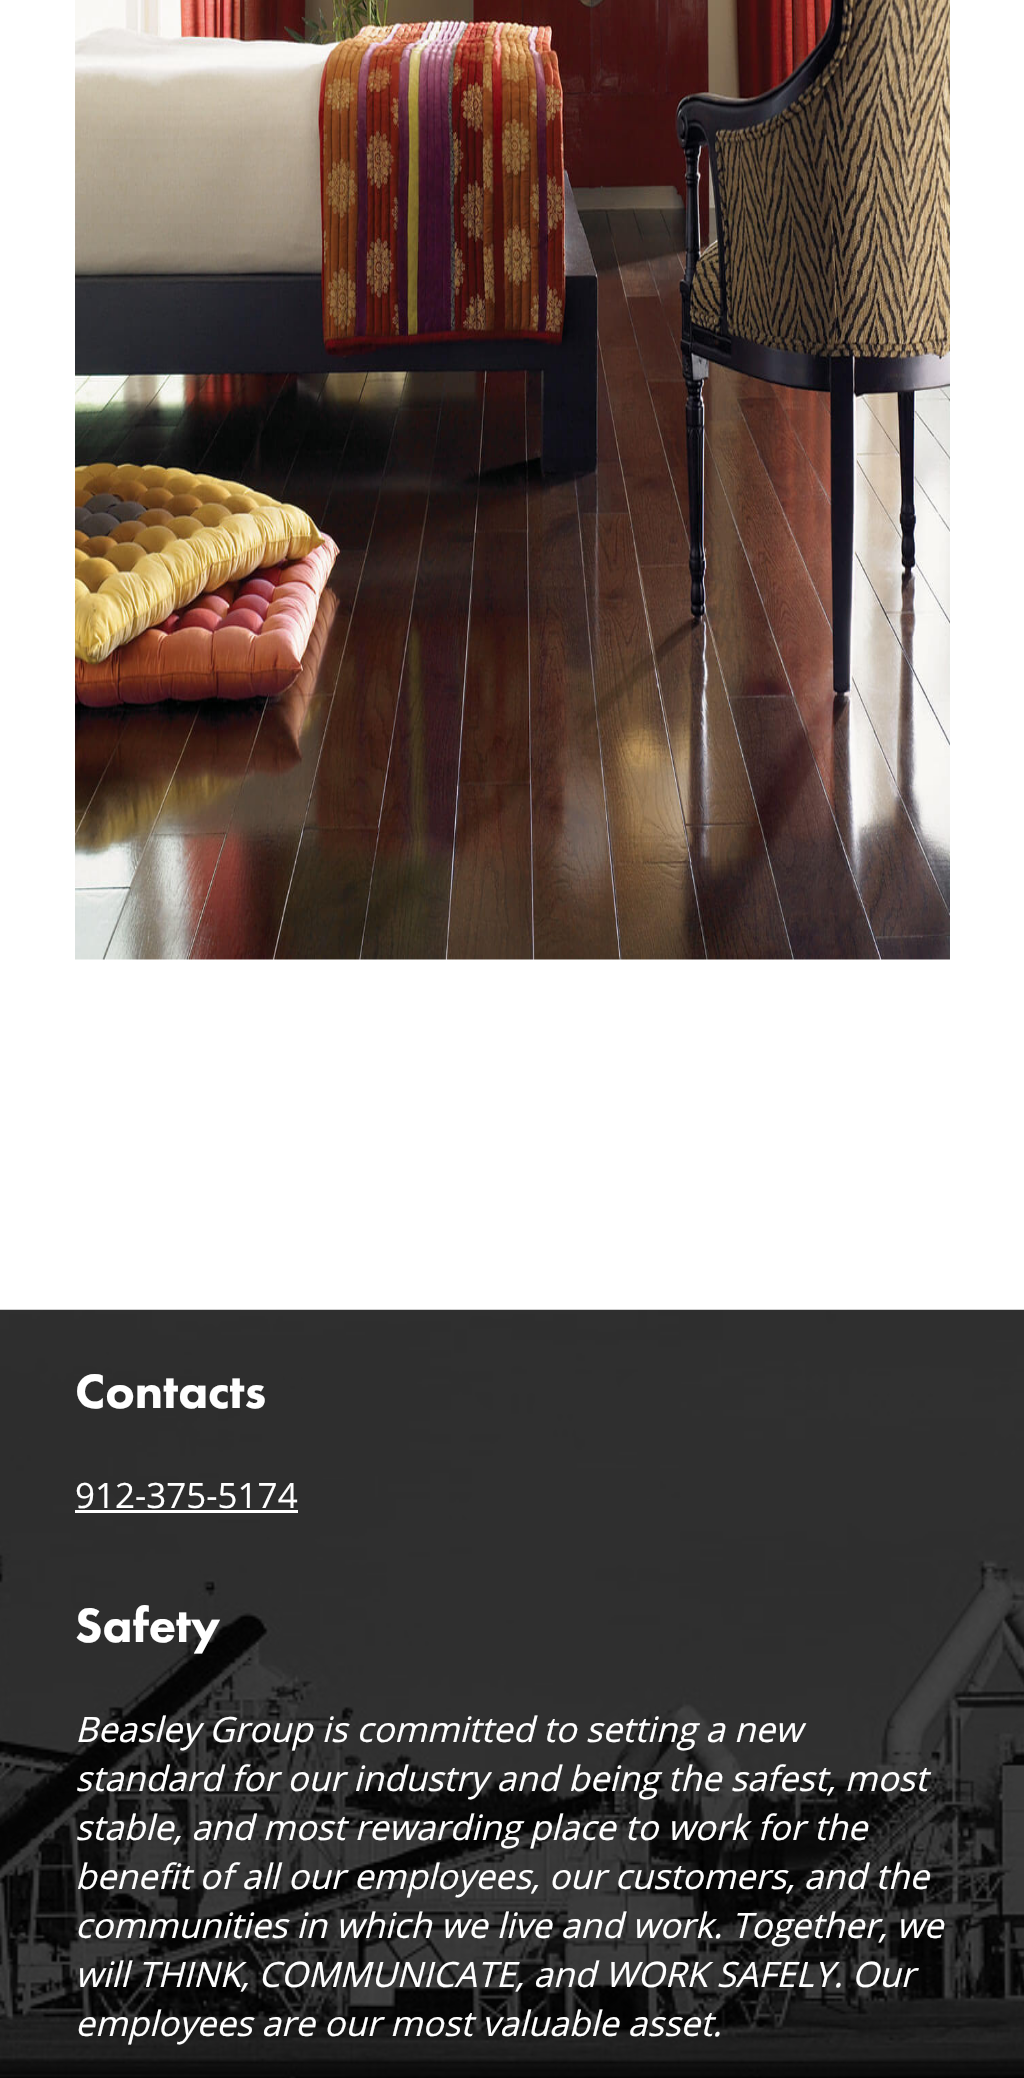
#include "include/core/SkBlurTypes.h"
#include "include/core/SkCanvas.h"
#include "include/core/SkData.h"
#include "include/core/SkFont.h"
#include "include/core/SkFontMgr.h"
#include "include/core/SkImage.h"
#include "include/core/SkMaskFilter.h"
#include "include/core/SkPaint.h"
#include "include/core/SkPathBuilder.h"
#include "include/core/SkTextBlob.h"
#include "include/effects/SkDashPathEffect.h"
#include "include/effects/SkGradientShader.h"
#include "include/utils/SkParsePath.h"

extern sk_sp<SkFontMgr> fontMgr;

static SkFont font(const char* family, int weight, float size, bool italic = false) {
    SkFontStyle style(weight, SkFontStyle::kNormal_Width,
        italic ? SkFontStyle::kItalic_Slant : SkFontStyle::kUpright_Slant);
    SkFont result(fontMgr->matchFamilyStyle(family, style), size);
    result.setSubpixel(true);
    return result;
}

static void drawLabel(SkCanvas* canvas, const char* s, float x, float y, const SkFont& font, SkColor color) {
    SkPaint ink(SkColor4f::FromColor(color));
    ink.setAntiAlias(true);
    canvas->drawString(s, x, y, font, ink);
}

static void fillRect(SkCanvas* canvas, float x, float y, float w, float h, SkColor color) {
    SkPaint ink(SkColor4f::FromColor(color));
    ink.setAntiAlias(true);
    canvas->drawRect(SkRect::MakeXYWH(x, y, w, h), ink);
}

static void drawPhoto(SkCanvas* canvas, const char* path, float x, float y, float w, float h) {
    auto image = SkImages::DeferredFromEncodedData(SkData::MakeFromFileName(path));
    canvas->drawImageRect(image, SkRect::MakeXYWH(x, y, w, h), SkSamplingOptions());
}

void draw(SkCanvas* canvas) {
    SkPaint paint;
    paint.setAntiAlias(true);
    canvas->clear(0xFFFFFFFF);
    drawPhoto(canvas, "assets/img1.png", 75, 0, 875, 960);
    drawPhoto(canvas, "assets/img2.png", 0, 1309, 1024, 769);
    SkFont font1 = font("Futura PT", 900, 50);
    drawLabel(canvas, "Contacts", 75, 1408, font1, 0xFFFFFFFF);
    SkFont font2 = font("Open Sans", 400, 35);
    drawLabel(canvas, "912-375-5174", 75, 1508, font2, 0xFFFFFFFF);
    fillRect(canvas, 75, 1510, 223, 3, 0xFFFFFFFF);
    drawLabel(canvas, "Safety", 75, 1642, font1, 0xFFFFFFFF);
    SkFont font3 = font("Open Sans", 400, 35, true);
    drawLabel(canvas, "Beasley Group is committed to setting a new", 75, 1742, font3, 0xFFFFFFFF);
    drawLabel(canvas, "standard for our industry and being the safest, most", 75, 1791, font3, 0xFFFFFFFF);
    drawLabel(canvas, "stable, and most rewarding place to work for the", 75, 1840, font3, 0xFFFFFFFF);
    drawLabel(canvas, "benefit of all our employees, our customers, and the", 75, 1889, font3, 0xFFFFFFFF);
    drawLabel(canvas, "communities in which we live and work. Together, we", 75, 1938, font3, 0xFFFFFFFF);
    drawLabel(canvas, "will THINK, COMMUNICATE, and WORK SAFELY. Our", 75, 1987, font3, 0xFFFFFFFF);
    drawLabel(canvas, "employees are our most valuable asset.", 75, 2036, font3, 0xFFFFFFFF);
}
